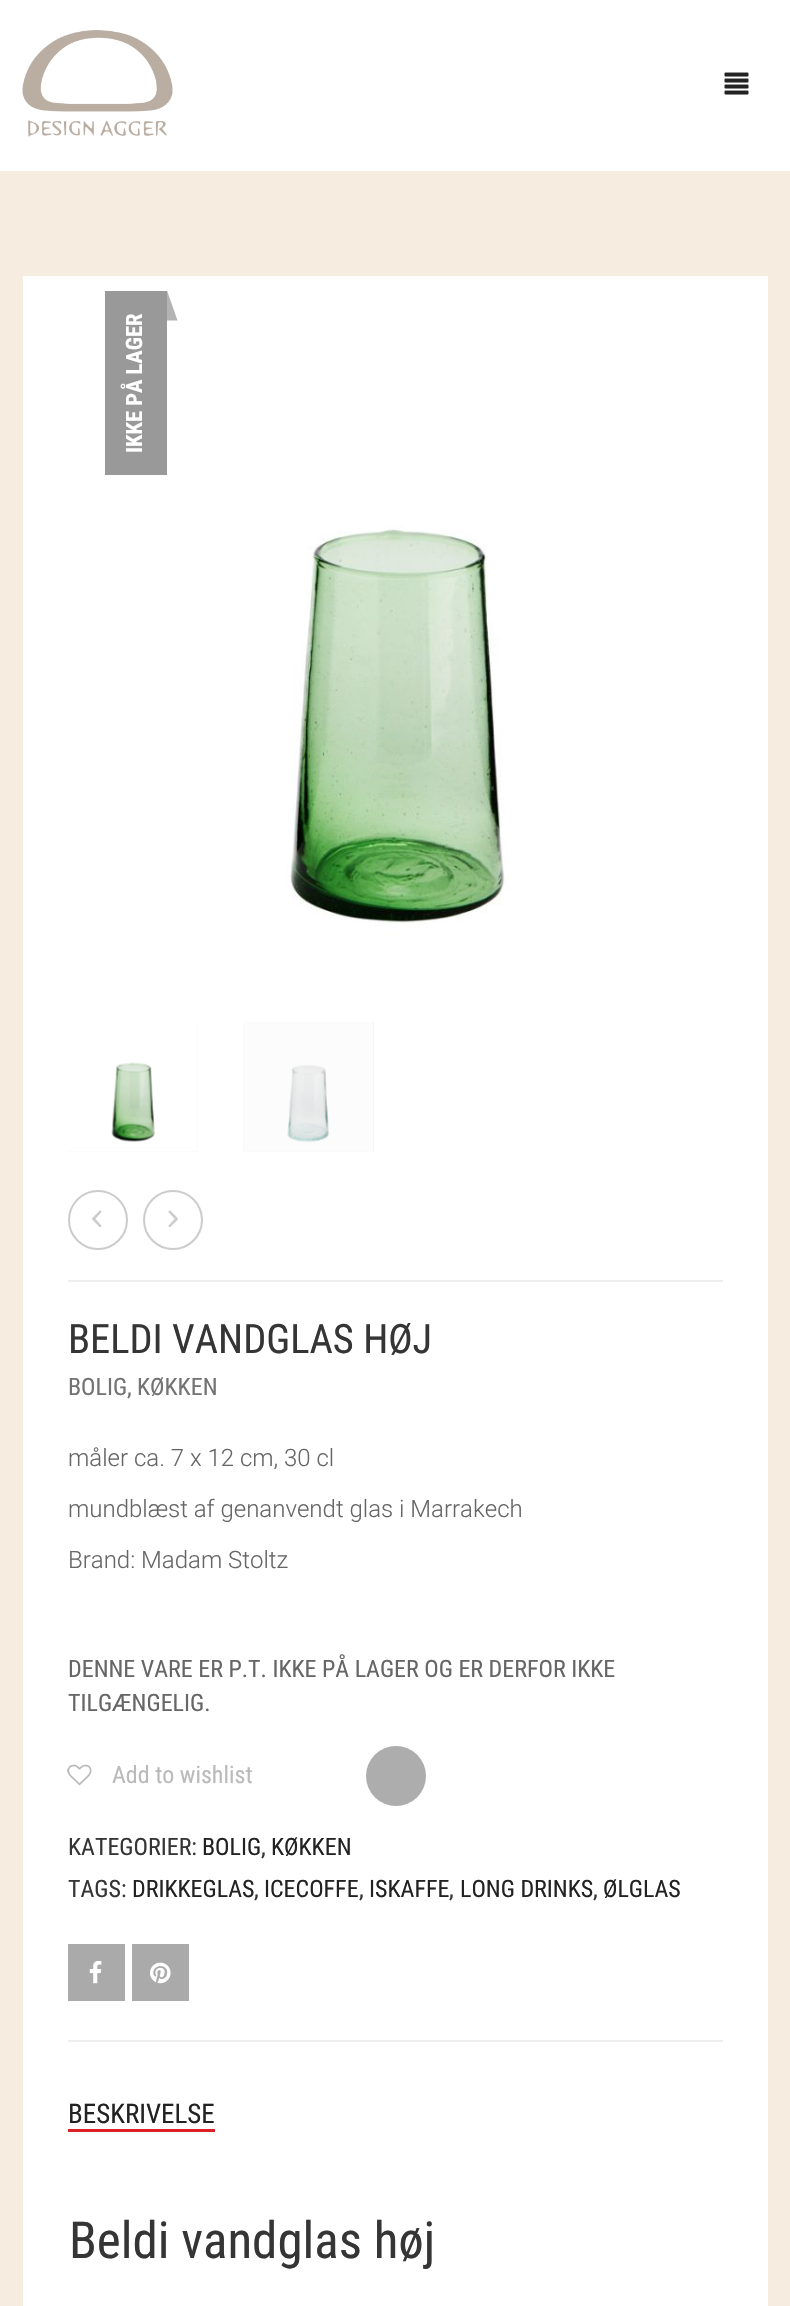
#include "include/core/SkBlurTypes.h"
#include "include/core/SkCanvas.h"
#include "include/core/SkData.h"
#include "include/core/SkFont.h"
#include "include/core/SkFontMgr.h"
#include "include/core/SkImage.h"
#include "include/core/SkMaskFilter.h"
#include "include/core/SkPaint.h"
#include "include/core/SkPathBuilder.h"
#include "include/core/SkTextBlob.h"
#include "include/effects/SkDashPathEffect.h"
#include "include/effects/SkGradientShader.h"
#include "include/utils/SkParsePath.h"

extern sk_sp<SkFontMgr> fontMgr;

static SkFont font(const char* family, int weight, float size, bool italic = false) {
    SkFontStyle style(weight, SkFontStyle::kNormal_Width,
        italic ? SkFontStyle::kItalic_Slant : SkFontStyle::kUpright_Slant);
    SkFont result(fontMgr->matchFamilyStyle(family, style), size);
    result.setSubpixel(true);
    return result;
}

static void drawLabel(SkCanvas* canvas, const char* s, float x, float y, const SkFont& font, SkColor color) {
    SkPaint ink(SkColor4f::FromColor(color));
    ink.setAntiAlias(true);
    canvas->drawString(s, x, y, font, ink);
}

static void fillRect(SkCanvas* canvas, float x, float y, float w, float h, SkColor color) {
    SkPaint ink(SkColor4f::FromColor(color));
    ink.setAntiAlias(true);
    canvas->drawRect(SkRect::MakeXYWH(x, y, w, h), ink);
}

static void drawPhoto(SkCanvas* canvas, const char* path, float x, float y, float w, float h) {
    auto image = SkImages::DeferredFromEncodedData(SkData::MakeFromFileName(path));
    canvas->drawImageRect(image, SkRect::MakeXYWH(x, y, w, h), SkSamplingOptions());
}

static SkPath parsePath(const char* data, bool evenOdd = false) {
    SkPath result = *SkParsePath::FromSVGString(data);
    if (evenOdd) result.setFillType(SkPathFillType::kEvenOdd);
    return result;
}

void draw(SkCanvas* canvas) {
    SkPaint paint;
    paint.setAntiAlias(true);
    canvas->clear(0xFFF6ECE0);
    fillRect(canvas, 0, 0, 790, 171, 0xFFFFFFFF);
    drawPhoto(canvas, "assets/img1.png", 22, 30, 151, 107);
    drawPhoto(canvas, "assets/img2.png", 724, 72, 25, 23);
    fillRect(canvas, 23, 276, 745, 2030, 0xFFFFFFFF);
    drawPhoto(canvas, "assets/img3.png", 68, 321, 655, 656);
    fillRect(canvas, 105, 291, 62, 184, 0xFF999999);
    paint.setColor(0xFFB3B3B3);
    canvas->drawPath(parsePath("M167 320.5V290.5L177.5 320.5Z"), paint);
    SkFont font1 = font("Roboto Condensed", 700, 22.5f);
    canvas->save();
    canvas->rotate(-90, 142, 453);
    drawLabel(canvas, "IKKE PÅ LAGER", 142, 453, font1, 0xFFFFFFFF);
    canvas->restore();
    fillRect(canvas, 68, 1022, 130, 130, 0xFFF0F0F0);
    drawPhoto(canvas, "assets/img4.png", 68, 1022, 130, 130);
    fillRect(canvas, 243, 1022, 131, 130, 0xFFF5F5F5);
    drawPhoto(canvas, "assets/img5.png", 243, 1022, 130, 130);
    fillRect(canvas, 68, 1280, 655, 2, 0xFFEEEEEE);
    paint.setStroke(true);
    paint.setStrokeWidth(2);
    paint.setColor(0xFFCCCCCC);
    canvas->drawCircle(98, 1220, 29, paint);
    drawPhoto(canvas, "assets/img6.png", 92, 1210, 10, 18);
    canvas->drawCircle(173, 1220, 29, paint);
    drawPhoto(canvas, "assets/img7.png", 168, 1210, 10, 18);
    SkFont font2 = font("Roboto Condensed", 400, 40.5f);
    drawLabel(canvas, "BELDI VANDGLAS HØJ", 68, 1353, font2, 0xFF353535);
    SkFont font3 = font("Roboto Condensed", 400, 24);
    drawLabel(canvas, "BOLIG", 68, 1395, font3, 0xFF737373);
    SkFont font4 = font("Roboto", 400, 24);
    drawLabel(canvas, ",", 127, 1395, font4, 0xFF737373);
    drawLabel(canvas, "KØKKEN", 137, 1395, font3, 0xFF737373);
    SkFont font5 = font("Roboto", 300, 24);
    drawLabel(canvas, "måler ca. 7 x 12 cm, 30 cl", 68, 1466, font5, 0xFF666666);
    drawLabel(canvas, "mundblæst af genanvendt glas i Marrakech", 68, 1517, font5, 0xFF666666);
    drawLabel(canvas, "Brand: Madam Stoltz", 68, 1568, font5, 0xFF666666);
    drawLabel(canvas, "DENNE VARE ER P.T. IKKE PÅ LAGER OG ER DERFOR IKKE", 68, 1677, font3, 0xFF666666);
    drawLabel(canvas, "TILGÆNGELIG.", 68, 1711, font3, 0xFF666666);
    drawPhoto(canvas, "assets/img8.png", 67, 1764, 25, 22);
    drawLabel(canvas, "Add to wishlist", 112, 1783, font3, 0xFFBABABA);
    paint.setStroke(false);
    paint.setColor(0xFFADADAD);
    canvas->drawCircle(396, 1776, 30, paint);
    drawLabel(canvas, "KATEGORIER:", 68, 1855, font3, 0xFF353535);
    drawLabel(canvas, "BOLIG", 202, 1855, font3, 0xFF222222);
    drawLabel(canvas, ",", 261, 1855, font3, 0xFF353535);
    drawLabel(canvas, "KØKKEN", 271, 1855, font3, 0xFF222222);
    drawLabel(canvas, "TAGS:", 68, 1897, font3, 0xFF353535);
    drawLabel(canvas, "DRIKKEGLAS", 132, 1897, font3, 0xFF222222);
    drawLabel(canvas, ",", 254, 1897, font3, 0xFF353535);
    drawLabel(canvas, "ICECOFFE", 264, 1897, font3, 0xFF222222);
    drawLabel(canvas, ",", 359, 1897, font3, 0xFF353535);
    drawLabel(canvas, "ISKAFFE", 369, 1897, font3, 0xFF222222);
    drawLabel(canvas, ",", 449, 1897, font3, 0xFF353535);
    drawLabel(canvas, "LONG DRINKS", 460, 1897, font3, 0xFF222222);
    drawLabel(canvas, ",", 593, 1897, font3, 0xFF353535);
    drawLabel(canvas, "ØLGLAS", 603, 1897, font3, 0xFF222222);
    fillRect(canvas, 68, 1944, 57, 57, 0xFFAAAAAA);
    drawPhoto(canvas, "assets/img9.png", 89, 1960, 13, 24);
    fillRect(canvas, 132, 1944, 57, 57, 0xFFAAAAAA);
    drawPhoto(canvas, "assets/img10.png", 150, 1962, 21, 22);
    fillRect(canvas, 68, 2040, 655, 2, 0xFFEEEEEE);
    SkFont font6 = font("Roboto Condensed", 400, 27);
    drawLabel(canvas, "BESKRIVELSE", 68, 2123, font6, 0xFF222222);
    fillRect(canvas, 68, 2129, 147, 3, 0xFFDD1F26);
    SkFont font7 = font("Roboto Condensed", 400, 51);
    drawLabel(canvas, "Beldi vandglas høj", 69, 2258, font7, 0xFF353535);
}
